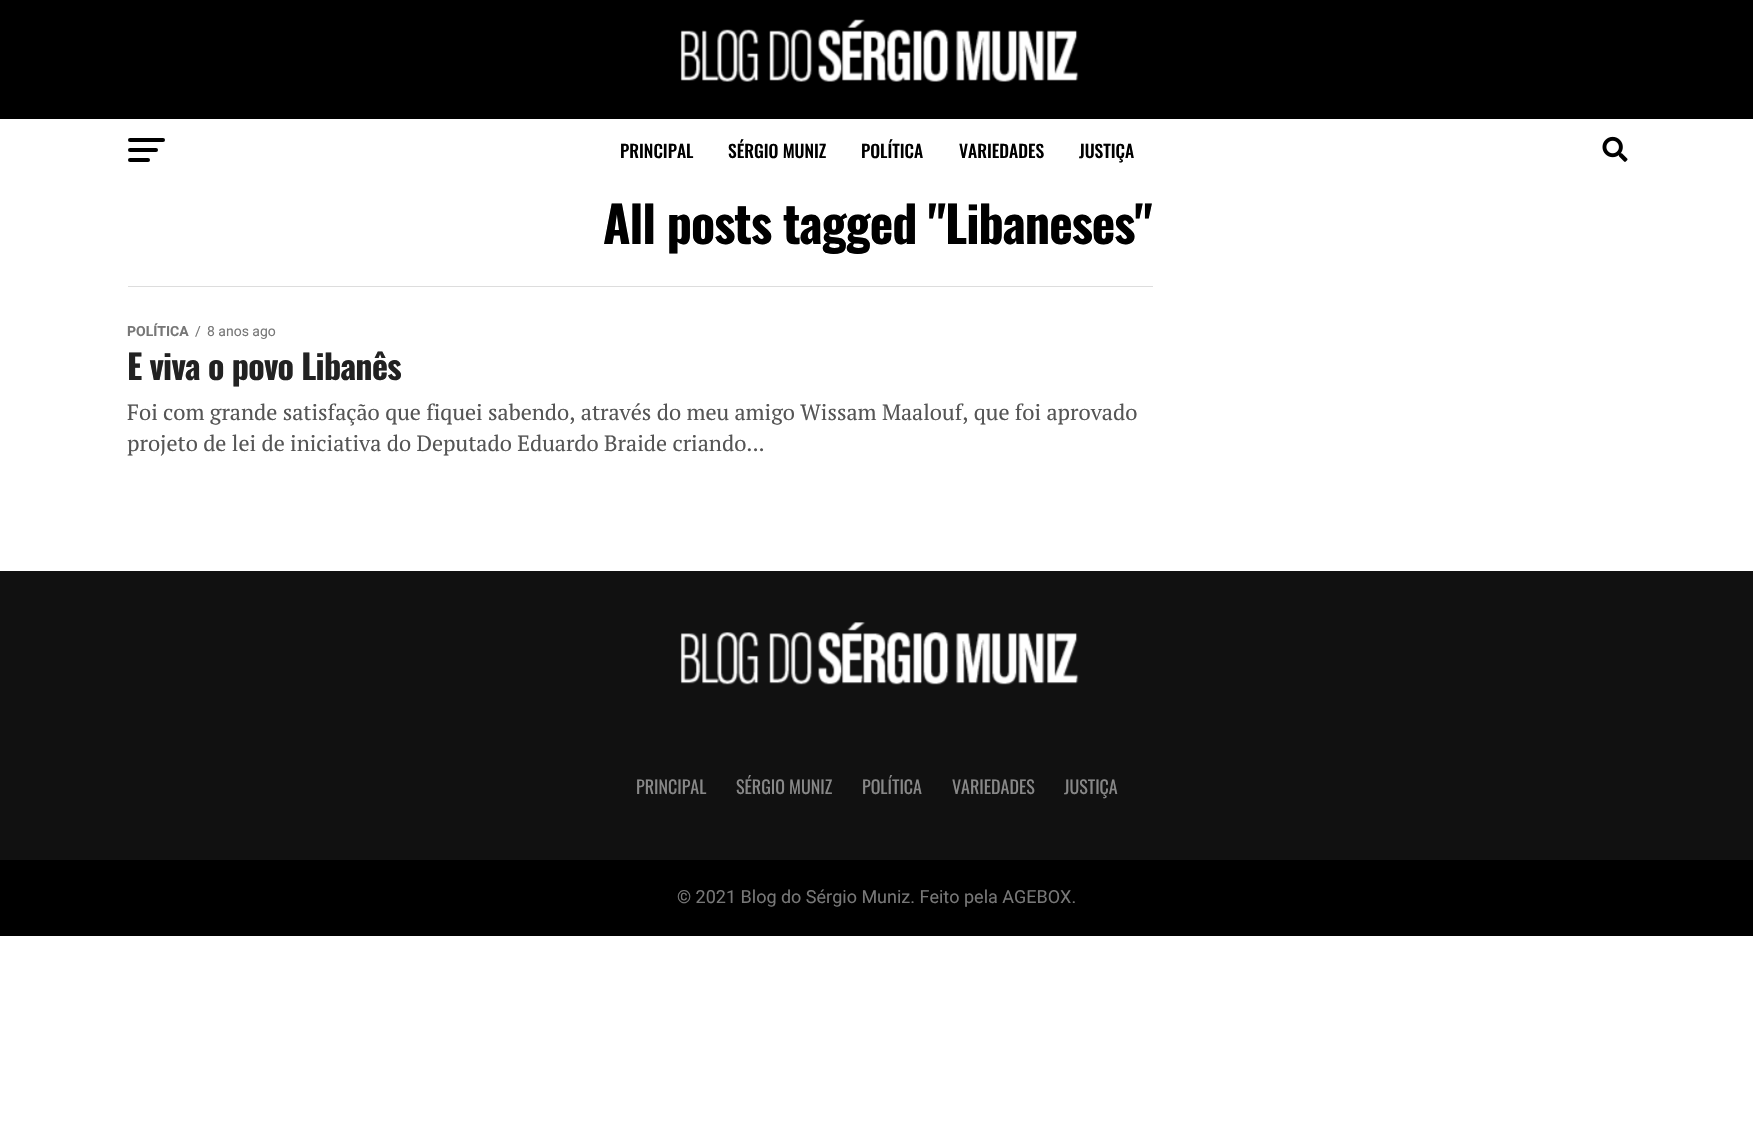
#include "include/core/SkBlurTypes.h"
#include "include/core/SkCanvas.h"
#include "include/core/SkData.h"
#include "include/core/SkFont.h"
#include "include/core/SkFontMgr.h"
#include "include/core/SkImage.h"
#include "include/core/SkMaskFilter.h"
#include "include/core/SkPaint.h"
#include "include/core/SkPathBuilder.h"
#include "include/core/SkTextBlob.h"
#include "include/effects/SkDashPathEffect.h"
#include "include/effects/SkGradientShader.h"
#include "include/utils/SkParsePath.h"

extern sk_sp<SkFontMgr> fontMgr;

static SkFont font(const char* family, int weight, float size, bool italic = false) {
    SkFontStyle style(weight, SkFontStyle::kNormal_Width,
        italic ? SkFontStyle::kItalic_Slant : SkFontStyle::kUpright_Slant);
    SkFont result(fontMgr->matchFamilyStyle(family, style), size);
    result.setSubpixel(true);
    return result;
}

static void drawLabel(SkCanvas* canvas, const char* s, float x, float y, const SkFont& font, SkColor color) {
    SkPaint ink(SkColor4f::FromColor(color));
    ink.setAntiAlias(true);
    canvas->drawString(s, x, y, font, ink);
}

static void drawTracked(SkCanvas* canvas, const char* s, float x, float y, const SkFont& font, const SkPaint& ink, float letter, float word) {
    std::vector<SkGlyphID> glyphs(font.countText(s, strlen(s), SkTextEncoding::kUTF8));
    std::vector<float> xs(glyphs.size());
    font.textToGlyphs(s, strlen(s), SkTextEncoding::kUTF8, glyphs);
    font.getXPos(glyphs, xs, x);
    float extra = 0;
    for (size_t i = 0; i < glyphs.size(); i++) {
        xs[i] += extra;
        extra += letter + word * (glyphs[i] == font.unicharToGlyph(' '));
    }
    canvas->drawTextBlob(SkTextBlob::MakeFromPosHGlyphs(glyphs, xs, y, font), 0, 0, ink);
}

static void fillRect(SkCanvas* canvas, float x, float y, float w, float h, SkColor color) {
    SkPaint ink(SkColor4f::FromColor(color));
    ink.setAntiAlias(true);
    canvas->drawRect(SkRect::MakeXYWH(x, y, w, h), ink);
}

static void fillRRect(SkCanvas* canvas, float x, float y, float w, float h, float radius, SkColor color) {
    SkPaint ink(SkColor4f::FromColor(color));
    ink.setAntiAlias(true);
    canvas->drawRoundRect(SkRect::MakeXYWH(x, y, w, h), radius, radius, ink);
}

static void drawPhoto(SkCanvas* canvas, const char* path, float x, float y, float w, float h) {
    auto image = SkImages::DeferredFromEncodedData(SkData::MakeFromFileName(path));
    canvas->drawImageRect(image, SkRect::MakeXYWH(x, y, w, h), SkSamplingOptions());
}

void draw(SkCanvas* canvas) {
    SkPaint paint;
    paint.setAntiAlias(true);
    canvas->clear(0xFFFFFFFF);
    fillRect(canvas, 0, 0, 1753, 119, 0xFF000000);
    drawPhoto(canvas, "assets/img1.png", 680, 19, 399, 63);
    fillRRect(canvas, 128, 138, 37, 4, 2, 0xFF000000);
    fillRRect(canvas, 128, 148, 30, 4, 2, 0xFF000000);
    fillRRect(canvas, 128, 158, 22, 4, 2, 0xFF000000);
    SkFont font1 = font("Oswald", 500, 17.5f);
    drawLabel(canvas, "PRINCIPAL", 620, 158, font1, 0xFF000000);
    drawLabel(canvas, "SÉRGIO MUNIZ", 728, 158, font1, 0xFF000000);
    drawLabel(canvas, "POLÍTICA", 861, 158, font1, 0xFF000000);
    drawLabel(canvas, "VARIEDADES", 959, 158, font1, 0xFF000000);
    drawLabel(canvas, "JUSTIÇA", 1079, 158, font1, 0xFF000000);
    drawPhoto(canvas, "assets/img2.png", 1602, 136, 26, 26);
    SkFont font2 = font("Oswald", 700, 50);
    paint.setColor(0xFF000000);
    drawTracked(canvas, "All posts tagged \"Libaneses\"", 603, 244, font2, paint, -1, 0);
    fillRect(canvas, 128, 286, 1025, 1, 0xFFDDDDDD);
    SkFont font3 = font("Roboto", 700, 14);
    drawLabel(canvas, "POLÍTICA", 127, 336, font3, 0xFF777777);
    SkFont font4 = font("Roboto", 400, 14);
    drawLabel(canvas, "/", 195, 336, font4, 0xFF777777);
    drawLabel(canvas, "8 anos ago", 207, 336, font4, 0xFF777777);
    SkFont font5 = font("Oswald", 700, 34);
    paint.setColor(0xFF222222);
    drawTracked(canvas, "E viva o povo Libanês", 127, 380, font5, paint, -0.7f, 0);
    SkFont font6 = font("PT Serif", 400, 22);
    drawLabel(canvas, "Foi com grande satisfação que fiquei sabendo, através do meu amigo Wissam Maalouf, que foi aprovado", 127, 420, font6, 0xFF555555);
    drawLabel(canvas, "projeto de lei de iniciativa do Deputado Eduardo Braide criando...", 127, 451, font6, 0xFF555555);
    fillRect(canvas, 0, 571, 1753, 289, 0xFF111111);
    drawPhoto(canvas, "assets/img3.png", 680, 622, 399, 63);
    SkFont font7 = font("Oswald", 400, 18);
    drawLabel(canvas, "PRINCIPAL", 636, 794, font7, 0xFF888888);
    drawLabel(canvas, "SÉRGIO MUNIZ", 736, 794, font7, 0xFF888888);
    drawLabel(canvas, "POLÍTICA", 862, 794, font7, 0xFF888888);
    drawLabel(canvas, "VARIEDADES", 952, 794, font7, 0xFF888888);
    drawLabel(canvas, "JUSTIÇA", 1064, 794, font7, 0xFF888888);
    fillRect(canvas, 0, 860, 1753, 76, 0xFF000000);
    SkFont font8 = font("Roboto", 400, 18);
    drawLabel(canvas, "© 2021 Blog do Sérgio Muniz. Feito pela AGEBOX.", 677, 903, font8, 0xFF777777);
}
